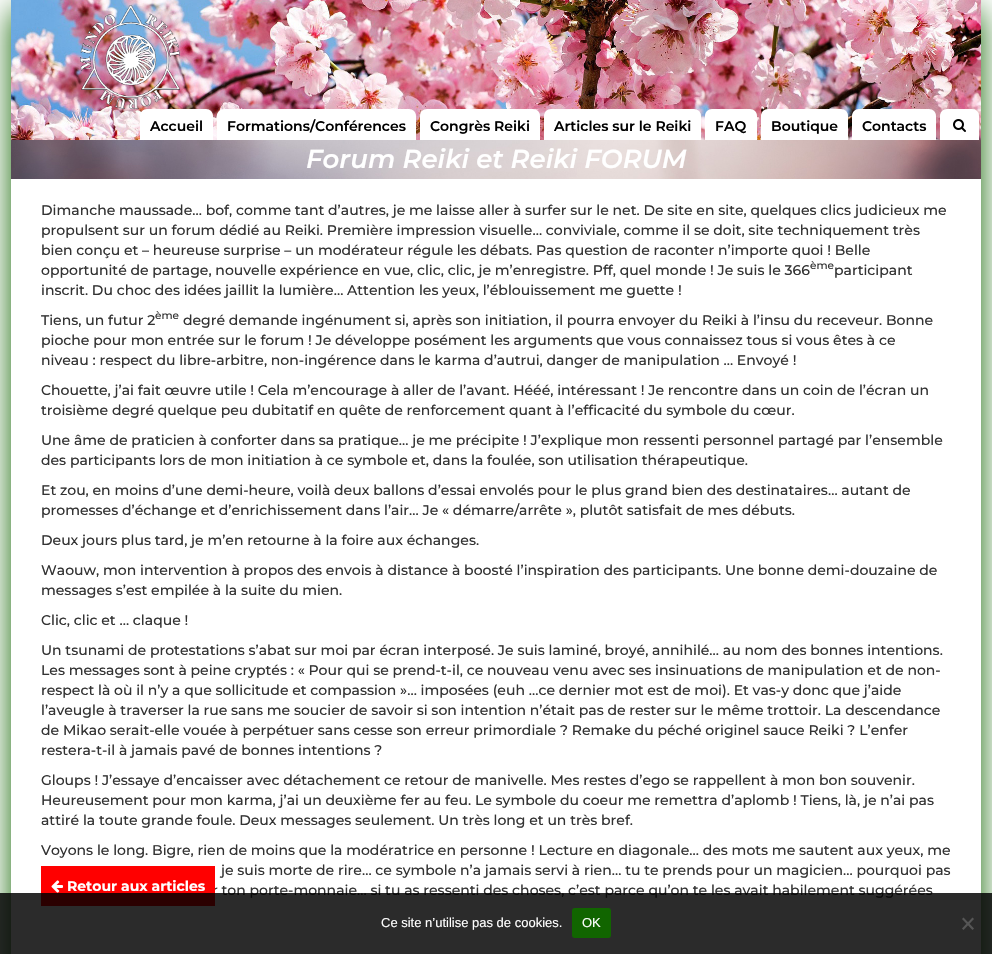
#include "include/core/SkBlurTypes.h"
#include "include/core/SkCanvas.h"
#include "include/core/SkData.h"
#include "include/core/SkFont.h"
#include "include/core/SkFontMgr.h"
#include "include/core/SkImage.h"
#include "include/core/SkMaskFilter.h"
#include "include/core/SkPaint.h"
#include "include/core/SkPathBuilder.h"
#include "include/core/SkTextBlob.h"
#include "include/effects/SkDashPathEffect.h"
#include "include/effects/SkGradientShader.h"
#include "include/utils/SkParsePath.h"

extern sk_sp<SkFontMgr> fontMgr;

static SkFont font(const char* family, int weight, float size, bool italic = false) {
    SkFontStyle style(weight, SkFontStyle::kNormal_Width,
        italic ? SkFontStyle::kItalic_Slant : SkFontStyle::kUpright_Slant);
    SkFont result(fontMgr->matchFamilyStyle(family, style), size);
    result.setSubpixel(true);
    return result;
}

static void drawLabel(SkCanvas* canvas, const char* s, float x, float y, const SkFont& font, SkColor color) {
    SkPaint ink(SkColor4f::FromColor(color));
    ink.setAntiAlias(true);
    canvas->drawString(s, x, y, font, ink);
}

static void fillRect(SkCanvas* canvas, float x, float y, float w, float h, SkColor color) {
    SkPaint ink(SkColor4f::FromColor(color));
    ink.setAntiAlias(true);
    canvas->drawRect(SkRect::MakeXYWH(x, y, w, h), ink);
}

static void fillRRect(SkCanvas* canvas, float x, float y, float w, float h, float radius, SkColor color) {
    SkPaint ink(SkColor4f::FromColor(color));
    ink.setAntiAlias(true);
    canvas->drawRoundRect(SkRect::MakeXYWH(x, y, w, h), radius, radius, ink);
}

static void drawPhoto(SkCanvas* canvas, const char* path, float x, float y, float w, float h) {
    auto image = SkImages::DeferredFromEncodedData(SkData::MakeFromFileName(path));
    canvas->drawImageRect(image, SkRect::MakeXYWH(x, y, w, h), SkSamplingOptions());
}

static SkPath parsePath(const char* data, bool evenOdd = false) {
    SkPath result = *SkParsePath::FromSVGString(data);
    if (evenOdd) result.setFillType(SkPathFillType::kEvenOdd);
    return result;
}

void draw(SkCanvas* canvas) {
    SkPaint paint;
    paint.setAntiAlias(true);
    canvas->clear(0xFFFFFFFF);
    paint.setColor(0xFF116500);
    paint.setMaskFilter(SkMaskFilter::MakeBlur(kNormal_SkBlurStyle, 15));
    canvas->drawRect(SkRect::MakeXYWH(11, 11, 970, 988), paint);
    paint.setMaskFilter(nullptr);
    drawPhoto(canvas, "assets/img1.png", 11, 0, 970, 140);
    drawPhoto(canvas, "assets/img2.png", 80, 5, 100, 104);
    paint.setColor(0xFFFFFFFF);
    canvas->drawPath(parsePath("M147 109H206C210 109 213 112 213 116V143H140V116C140 112 143 109 147 109Z"), paint);
    SkFont font1 = font("Montserrat", 600, 14);
    drawLabel(canvas, "Accueil", 150, 131, font1, 0xFF000000);
    canvas->drawPath(parsePath("M224 109H409C413 109 416 112 416 116V143H217V116C217 112 220 109 224 109Z"), paint);
    drawLabel(canvas, "Formations/Conférences", 227, 131, font1, 0xFF000000);
    canvas->drawPath(parsePath("M427 109H533C537 109 540 112 540 116V143H420V116C420 112 423 109 427 109Z"), paint);
    drawLabel(canvas, "Congrès Reiki", 430, 131, font1, 0xFF000000);
    canvas->drawPath(parsePath("M551 109H694C698 109 701 112 701 116V143H544V116C544 112 547 109 551 109Z"), paint);
    drawLabel(canvas, "Articles sur le Reiki", 554, 131, font1, 0xFF000000);
    canvas->drawPath(parsePath("M712 109H750C754 109 757 112 757 116V143H705V116C705 112 708 109 712 109Z"), paint);
    drawLabel(canvas, "FAQ", 715, 131, font1, 0xFF000000);
    canvas->drawPath(parsePath("M768 109H841C845 109 848 112 848 116V143H761V116C761 112 764 109 768 109Z"), paint);
    drawLabel(canvas, "Boutique", 771, 131, font1, 0xFF000000);
    canvas->drawPath(parsePath("M859 109H929C933 109 936 112 936 116V143H852V116C852 112 855 109 859 109Z"), paint);
    drawLabel(canvas, "Contacts", 862, 131, font1, 0xFF000000);
    canvas->drawPath(parsePath("M947 109H972C976 109 979 112 979 116V142H940V116C940 112 943 109 947 109Z"), paint);
    drawPhoto(canvas, "assets/img3.png", 953, 119, 13, 13);
    drawPhoto(canvas, "assets/img4.png", 11, 140, 970, 39);
    SkFont font2 = font("Montserrat", 600, 26, true);
    drawLabel(canvas, "Forum Reiki et Reiki FORUM", 306, 168, font2, 0xFFFFFFFF);
    fillRect(canvas, 11, 179, 970, 775, 0xFFFFFFFF);
    SkFont font3 = font("Montserrat", 500, 14);
    drawLabel(canvas, "Dimanche maussade… bof, comme tant d’autres, je me laisse aller à surfer sur le net. De site en site, quelques clics judicieux me", 41, 215, font3, 0xFF333333);
    drawLabel(canvas, "propulsent sur un forum dédié au Reiki. Première impression visuelle… conviviale, comme il se doit, site techniquement très", 41, 235, font3, 0xFF333333);
    drawLabel(canvas, "bien conçu et – heureuse surprise – un modérateur régule les débats. Pas question de raconter n’importe quoi ! Belle", 41, 255, font3, 0xFF333333);
    drawLabel(canvas, "opportunité de partage, nouvelle expérience en vue, clic, clic, je m’enregistre. Pff, quel monde ! Je suis le 366", 41, 275, font3, 0xFF333333);
    SkFont font4 = font("Montserrat", 500, 10.5f);
    drawLabel(canvas, "ème", 810, 269, font4, 0xFF333333);
    drawLabel(canvas, "participant", 834, 275, font3, 0xFF333333);
    drawLabel(canvas, "inscrit. Du choc des idées jaillit la lumière… Attention les yeux, l’éblouissement me guette !", 41, 295, font3, 0xFF333333);
    drawLabel(canvas, "Tiens, un futur 2", 41, 325, font3, 0xFF333333);
    drawLabel(canvas, "ème", 155, 319, font4, 0xFF333333);
    drawLabel(canvas, "degré demande ingénument si, après son initiation, il pourra envoyer du Reiki à l’insu du receveur. Bonne", 183, 325, font3, 0xFF333333);
    drawLabel(canvas, "pioche pour mon entrée sur le forum ! Je développe posément les arguments que vous connaissez tous si vous êtes à ce", 41, 345, font3, 0xFF333333);
    drawLabel(canvas, "niveau : respect du libre-arbitre, non-ingérence dans le karma d’autrui, danger de manipulation … Envoyé !", 41, 365, font3, 0xFF333333);
    drawLabel(canvas, "Chouette, j’ai fait œuvre utile ! Cela m’encourage à aller de l’avant. Hééé, intéressant ! Je rencontre dans un coin de l’écran un", 41, 395, font3, 0xFF333333);
    drawLabel(canvas, "troisième degré quelque peu dubitatif en quête de renforcement quant à l’efficacité du symbole du cœur.", 41, 415, font3, 0xFF333333);
    drawLabel(canvas, "Une âme de praticien à conforter dans sa pratique… je me précipite ! J’explique mon ressenti personnel partagé par l’ensemble", 41, 445, font3, 0xFF333333);
    drawLabel(canvas, "des participants lors de mon initiation à ce symbole et, dans la foulée, son utilisation thérapeutique.", 41, 465, font3, 0xFF333333);
    drawLabel(canvas, "Et zou, en moins d’une demi-heure, voilà deux ballons d’essai envolés pour le plus grand bien des destinataires… autant de", 41, 495, font3, 0xFF333333);
    drawLabel(canvas, "promesses d’échange et d’enrichissement dans l’air… Je « démarre/arrête », plutôt satisfait de mes débuts.", 41, 515, font3, 0xFF333333);
    drawLabel(canvas, "Deux jours plus tard, je m’en retourne à la foire aux échanges.", 41, 545, font3, 0xFF333333);
    drawLabel(canvas, "Waouw, mon intervention à propos des envois à distance à boosté l’inspiration des participants. Une bonne demi-douzaine de", 41, 575, font3, 0xFF333333);
    drawLabel(canvas, "messages s’est empilée à la suite du mien.", 41, 595, font3, 0xFF333333);
    drawLabel(canvas, "Clic, clic et … claque !", 41, 625, font3, 0xFF333333);
    drawLabel(canvas, "Un tsunami de protestations s’abat sur moi par écran interposé. Je suis laminé, broyé, annihilé… au nom des bonnes intentions.", 41, 655, font3, 0xFF333333);
    drawLabel(canvas, "Les messages sont à peine cryptés : « Pour qui se prend-t-il, ce nouveau venu avec ses insinuations de manipulation et de non-", 41, 675, font3, 0xFF333333);
    drawLabel(canvas, "respect là où il n’y a que sollicitude et compassion »… imposées (euh …ce dernier mot est de moi). Et vas-y donc que j’aide", 41, 695, font3, 0xFF333333);
    drawLabel(canvas, "l’aveugle à traverser la rue sans me soucier de savoir si son intention n’était pas de rester sur le même trottoir. La descendance", 41, 715, font3, 0xFF333333);
    drawLabel(canvas, "de Mikao serait-elle vouée à perpétuer sans cesse son erreur primordiale ? Remake du péché originel sauce Reiki ? L’enfer", 41, 735, font3, 0xFF333333);
    drawLabel(canvas, "restera-t-il à jamais pavé de bonnes intentions ?", 41, 755, font3, 0xFF333333);
    drawLabel(canvas, "Gloups ! J’essaye d’encaisser avec détachement ce retour de manivelle. Mes restes d’ego se rappellent à mon bon souvenir.", 41, 785, font3, 0xFF333333);
    drawLabel(canvas, "Heureusement pour mon karma, j’ai un deuxième fer au feu. Le symbole du coeur me remettra d’aplomb ! Tiens, là, je n’ai pas", 41, 805, font3, 0xFF333333);
    drawLabel(canvas, "attiré la toute grande foule. Deux messages seulement. Un très long et un très bref.", 41, 825, font3, 0xFF333333);
    drawLabel(canvas, "Voyons le long. Bigre, rien de moins que la modératrice en personne ! Lecture en diagonale… des mots me sautent aux yeux, me", 41, 855, font3, 0xFF333333);
    drawLabel(canvas, "je suis morte de rire… ce symbole n’a jamais servi à rien… tu te prends pour un magicien… pourquoi pas", 221, 875, font3, 0xFF333333);
    drawLabel(canvas, "r ton porte-monnaie… si tu as ressenti des choses, c’est parce qu’on te les avait habilement suggérées", 212, 895, font3, 0xFF333333);
    fillRect(canvas, 41, 866, 174, 40, 0xFFFF0000);
    drawPhoto(canvas, "assets/img5.png", 51, 880, 12, 13);
    SkFont font5 = font("Montserrat", 700, 14);
    drawLabel(canvas, "Retour aux articles", 67, 891, font5, 0xFFFFFFFF);
    fillRect(canvas, 0, 893, 992, 61, 0xD4000000);
    SkFont font6 = font("Liberation Sans", 400, 13);
    drawLabel(canvas, "Ce site n’utilise pas de cookies.", 381, 927, font6, 0xFFFFFFFF);
    fillRRect(canvas, 572, 908, 39, 30, 3, 0xFF116500);
    drawLabel(canvas, "OK", 582, 927, font6, 0xFFFFFFFF);
    paint.setColor(0xFF565656);
    canvas->drawPath(parsePath("M972.5 917.5L974 919L963.5 930L962 928.5Z"), paint);
    canvas->drawPath(parsePath("M962 919L963.5 917.5L974 928.5L972.5 930Z"), paint);
}
